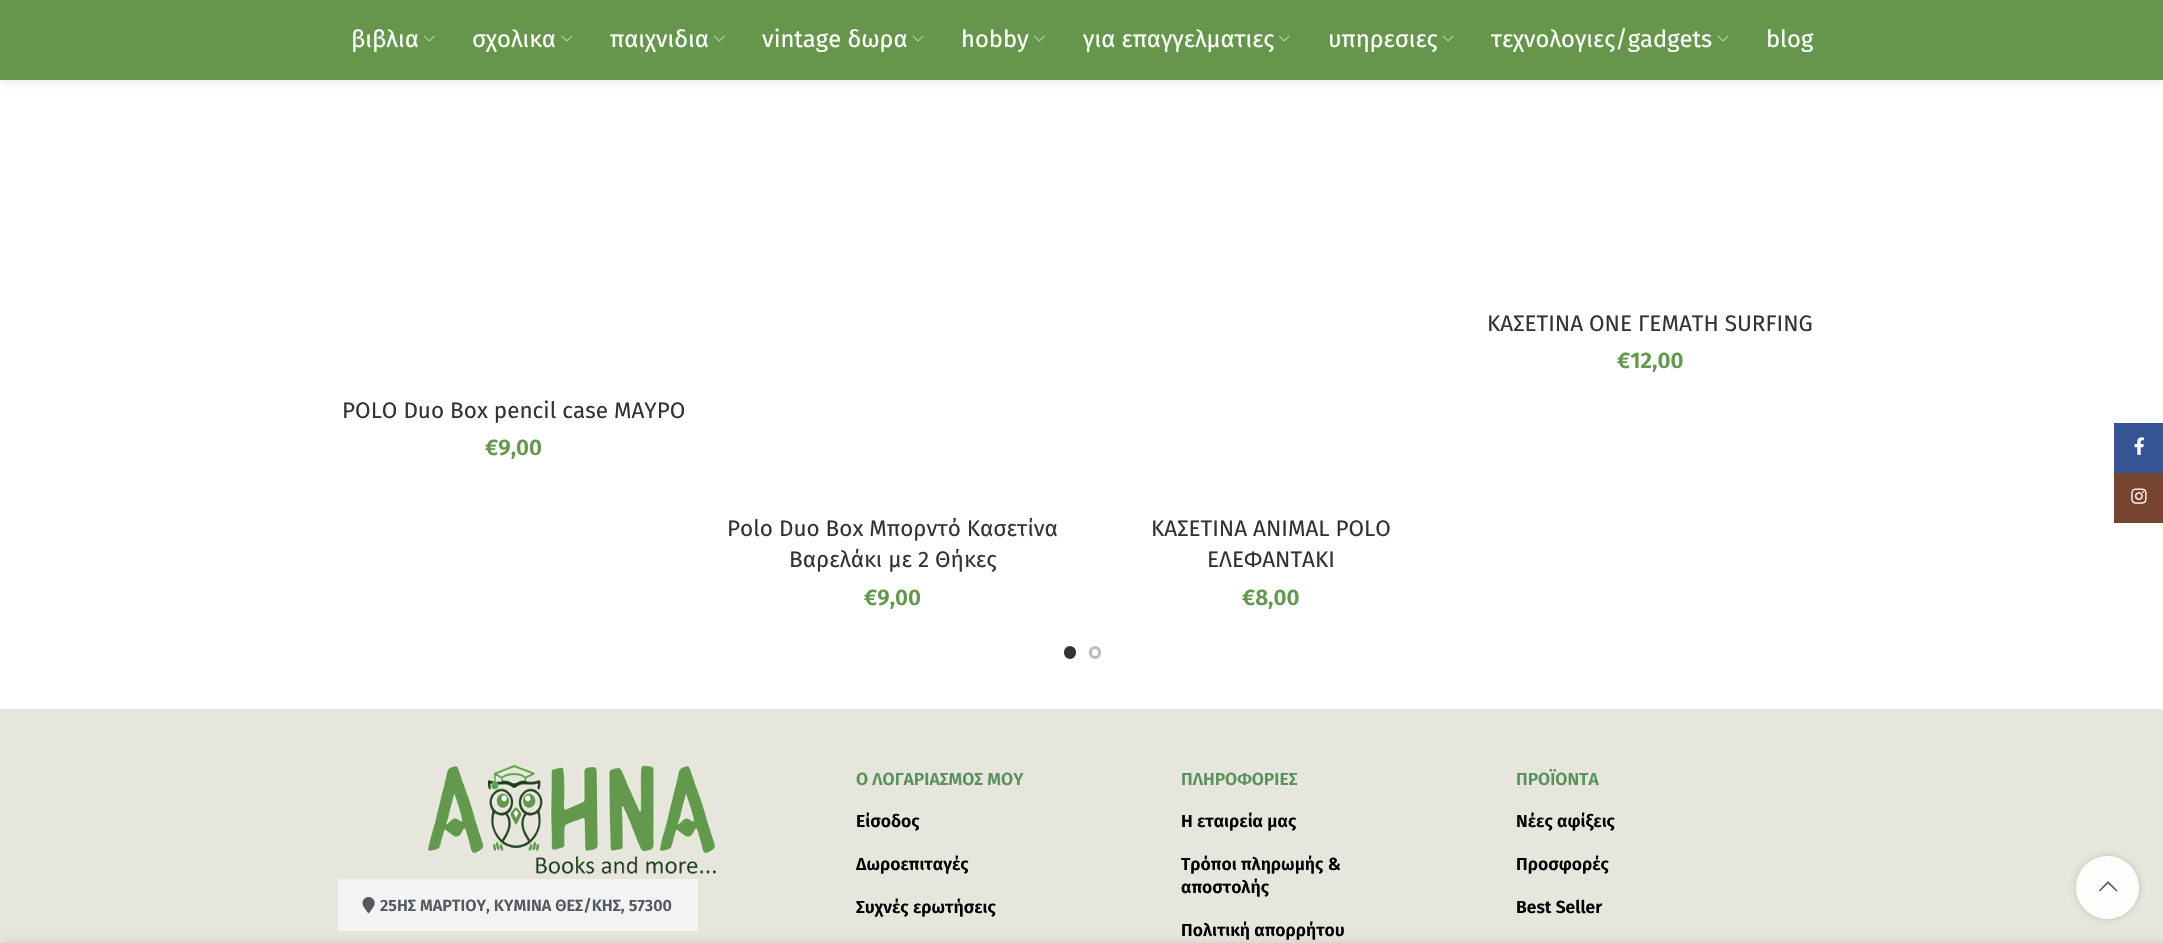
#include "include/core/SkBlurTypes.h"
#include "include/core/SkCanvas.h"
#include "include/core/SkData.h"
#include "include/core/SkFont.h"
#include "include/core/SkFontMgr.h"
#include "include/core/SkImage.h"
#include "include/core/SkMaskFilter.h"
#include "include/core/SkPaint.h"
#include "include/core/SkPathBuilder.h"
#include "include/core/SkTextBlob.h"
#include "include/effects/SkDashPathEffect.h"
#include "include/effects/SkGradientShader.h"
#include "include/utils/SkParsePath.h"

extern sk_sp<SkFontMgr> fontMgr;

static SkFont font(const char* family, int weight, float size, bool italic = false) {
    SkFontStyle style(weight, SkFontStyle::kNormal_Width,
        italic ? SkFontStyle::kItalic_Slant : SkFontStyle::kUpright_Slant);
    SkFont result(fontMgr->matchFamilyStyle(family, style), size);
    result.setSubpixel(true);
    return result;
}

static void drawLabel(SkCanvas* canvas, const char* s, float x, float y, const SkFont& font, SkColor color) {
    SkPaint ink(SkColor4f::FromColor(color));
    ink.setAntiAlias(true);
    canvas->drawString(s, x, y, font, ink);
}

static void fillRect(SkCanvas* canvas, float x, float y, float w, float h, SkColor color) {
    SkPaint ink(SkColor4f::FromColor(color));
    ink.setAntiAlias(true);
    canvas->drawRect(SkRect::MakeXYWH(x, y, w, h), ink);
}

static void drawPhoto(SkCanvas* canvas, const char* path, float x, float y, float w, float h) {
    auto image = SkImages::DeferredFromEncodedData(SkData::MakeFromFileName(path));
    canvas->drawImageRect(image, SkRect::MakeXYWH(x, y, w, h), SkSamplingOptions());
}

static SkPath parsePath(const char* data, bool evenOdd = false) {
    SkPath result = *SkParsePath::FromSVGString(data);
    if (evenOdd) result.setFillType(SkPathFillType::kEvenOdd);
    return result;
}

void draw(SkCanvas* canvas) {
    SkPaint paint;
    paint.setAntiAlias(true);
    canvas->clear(0xFFFFFFFF);
    paint.setColor(0x1A000000);
    paint.setMaskFilter(SkMaskFilter::MakeBlur(kNormal_SkBlurStyle, 5));
    canvas->drawRect(SkRect::MakeXYWH(0, 1, 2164, 80), paint);
    paint.setMaskFilter(nullptr);
    fillRect(canvas, 0, 0, 2163, 80, 0xFF65964C);
    SkFont font1 = font("Fira Sans", 400, 23.75f);
    drawLabel(canvas, "βιβλια", 351, 47, font1, 0xFFFFFFFF);
    drawPhoto(canvas, "assets/img1.png", 423, 35, 12, 7);
    drawLabel(canvas, "σχολικα", 472, 47, font1, 0xFFFFFFFF);
    drawPhoto(canvas, "assets/img2.png", 561, 35, 12, 7);
    drawLabel(canvas, "παιχνιδια", 610, 47, font1, 0xFFFFFFFF);
    drawPhoto(canvas, "assets/img1.png", 713, 35, 12, 7);
    drawLabel(canvas, "vintage δωρα", 762, 47, font1, 0xFFFFFFFF);
    drawPhoto(canvas, "assets/img3.png", 912, 35, 12, 7);
    drawLabel(canvas, "hobby", 961, 47, font1, 0xFFFFFFFF);
    drawPhoto(canvas, "assets/img1.png", 1033, 35, 12, 7);
    drawLabel(canvas, "για επαγγελματιες", 1083, 47, font1, 0xFFFFFFFF);
    drawPhoto(canvas, "assets/img1.png", 1278, 35, 12, 7);
    drawLabel(canvas, "υπηρεσιες", 1328, 47, font1, 0xFFFFFFFF);
    drawPhoto(canvas, "assets/img3.png", 1442, 35, 12, 7);
    drawLabel(canvas, "τεχνολογιες/gadgets", 1491, 47, font1, 0xFFFFFFFF);
    drawPhoto(canvas, "assets/img3.png", 1717, 35, 12, 7);
    drawLabel(canvas, "blog", 1766, 47, font1, 0xFFFFFFFF);
    SkFont font2 = font("Fira Sans", 400, 22.5f);
    drawLabel(canvas, "ΚΑΣΕΤΙΝΑ ONE ΓΕΜΑΤΗ SURFING", 1487, 331, font2, 0xFF333333);
    SkFont font3 = font("Fira Sans", 600, 22.5f);
    drawLabel(canvas, "€12,00", 1617, 368, font3, 0xFF63994C);
    drawLabel(canvas, "POLO Duo Box pencil case ΜΑΥΡΟ", 342, 418, font2, 0xFF333333);
    drawLabel(canvas, "€9,00", 485, 455, font3, 0xFF63994C);
    drawLabel(canvas, "Polo Duo Box Μπορντό Κασετίνα", 727, 536, font2, 0xFF333333);
    drawLabel(canvas, "Βαρελάκι με 2 Θήκες", 789, 567, font2, 0xFF333333);
    drawLabel(canvas, "€9,00", 864, 605, font3, 0xFF63994C);
    drawLabel(canvas, "ΚΑΣΕΤΙΝΑ ANIMAL POLO", 1151, 536, font2, 0xFF333333);
    drawLabel(canvas, "ΕΛΕΦΑΝΤΑΚΙ", 1207, 567, font2, 0xFF333333);
    drawLabel(canvas, "€8,00", 1242, 605, font3, 0xFF63994C);
    paint.setColor(0xFF333333);
    canvas->drawRoundRect(SkRect::MakeXYWH(1065.5f, 647.5f, 9, 10), 4.5f, 4.5f, paint);
    paint.setStroke(true);
    paint.setStrokeWidth(3);
    canvas->drawRoundRect(SkRect::MakeXYWH(1065.5f, 647.5f, 9, 10), 4.5f, 4.5f, paint);
    paint.setColor(0xFFBBBBBB);
    canvas->drawRoundRect(SkRect::MakeXYWH(1090.5f, 647.5f, 9, 10), 4.5f, 4.5f, paint);
    fillRect(canvas, 0, 709, 2163, 234, 0xFFE7E6DC);
    drawPhoto(canvas, "assets/img4.png", 427, 764, 289, 111);
    fillRect(canvas, 338, 879, 360, 52, 0xFFF3F3F3);
    drawPhoto(canvas, "assets/img5.png", 362, 897, 13, 17);
    SkFont font4 = font("Fira Sans", 600, 16.25f);
    drawLabel(canvas, "25ΗΣ ΜΑΡΤΙΟΥ, ΚΥΜΙΝΑ ΘΕΣ/ΚΗΣ, 57300", 380, 911, font4, 0xFF54595F);
    SkFont font5 = font("Fira Sans", 600, 17.5f);
    drawLabel(canvas, "Ο ΛΟΓΑΡΙΑΣΜΟΣ ΜΟΥ", 856, 785, font5, 0xFF5B915F);
    drawLabel(canvas, "Είσοδος", 856, 827, font5, 0xFF000000);
    drawLabel(canvas, "Δωροεπιταγές", 856, 870, font5, 0xFF000000);
    drawLabel(canvas, "Συχνές ερωτήσεις", 856, 913, font5, 0xFF000000);
    drawLabel(canvas, "ΠΛΗΡΟΦΟΡΙΕΣ", 1181, 785, font5, 0xFF5B915F);
    drawLabel(canvas, "Η εταιρεία μας", 1181, 827, font5, 0xFF000000);
    drawLabel(canvas, "Τρόποι πληρωμής &", 1181, 870, font5, 0xFF000000);
    drawLabel(canvas, "αποστολής", 1181, 893, font5, 0xFF000000);
    drawLabel(canvas, "Πολιτική απορρήτου", 1181, 936, font5, 0xFF000000);
    drawLabel(canvas, "ΠΡΟΪΟΝΤΑ", 1516, 785, font5, 0xFF5B915F);
    drawLabel(canvas, "Νέες αφίξεις", 1516, 827, font5, 0xFF000000);
    drawLabel(canvas, "Προσφορές", 1516, 870, font5, 0xFF000000);
    drawLabel(canvas, "Best Seller", 1516, 913, font5, 0xFF000000);
    fillRect(canvas, 2114, 423, 49, 50, 0xFF365493);
    drawPhoto(canvas, "assets/img6.png", 2134, 437, 10, 18);
    fillRect(canvas, 2114, 473, 49, 50, 0xFF774430);
    drawPhoto(canvas, "assets/img7.png", 2131, 488, 16, 16);
    canvas->save();
    canvas->clipPath(parsePath("M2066 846H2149V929H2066ZM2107.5 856C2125 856 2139 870 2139 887.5C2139 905 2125 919 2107.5 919C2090 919 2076 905 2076 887.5C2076 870 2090 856 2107.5 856Z", true), true);
    paint.setStroke(false);
    paint.setColor(0x2B000000);
    paint.setMaskFilter(SkMaskFilter::MakeBlur(kNormal_SkBlurStyle, 3));
    canvas->drawRoundRect(SkRect::MakeXYWH(2076, 856, 63, 63), 31.5f, 31.5f, paint);
    paint.setMaskFilter(nullptr);
    canvas->restore();
    paint.setColor(0xE6FFFFFF);
    canvas->drawCircle(2107.5f, 887.5f, 31.5f, paint);
    paint.setColor(0xFF54595F);
    canvas->drawPath(parsePath("M2116.5 891.5L2117.5 890.5L2108 881L2099 890.5L2100 891.5L2108 883.5Z"), paint);
    paint.setColor(0x24000000);
    paint.setMaskFilter(SkMaskFilter::MakeBlur(kNormal_SkBlurStyle, 5.5f));
    canvas->drawRect(SkRect::MakeXYWH(0, 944, 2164, 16), paint);
    paint.setMaskFilter(nullptr);
}
